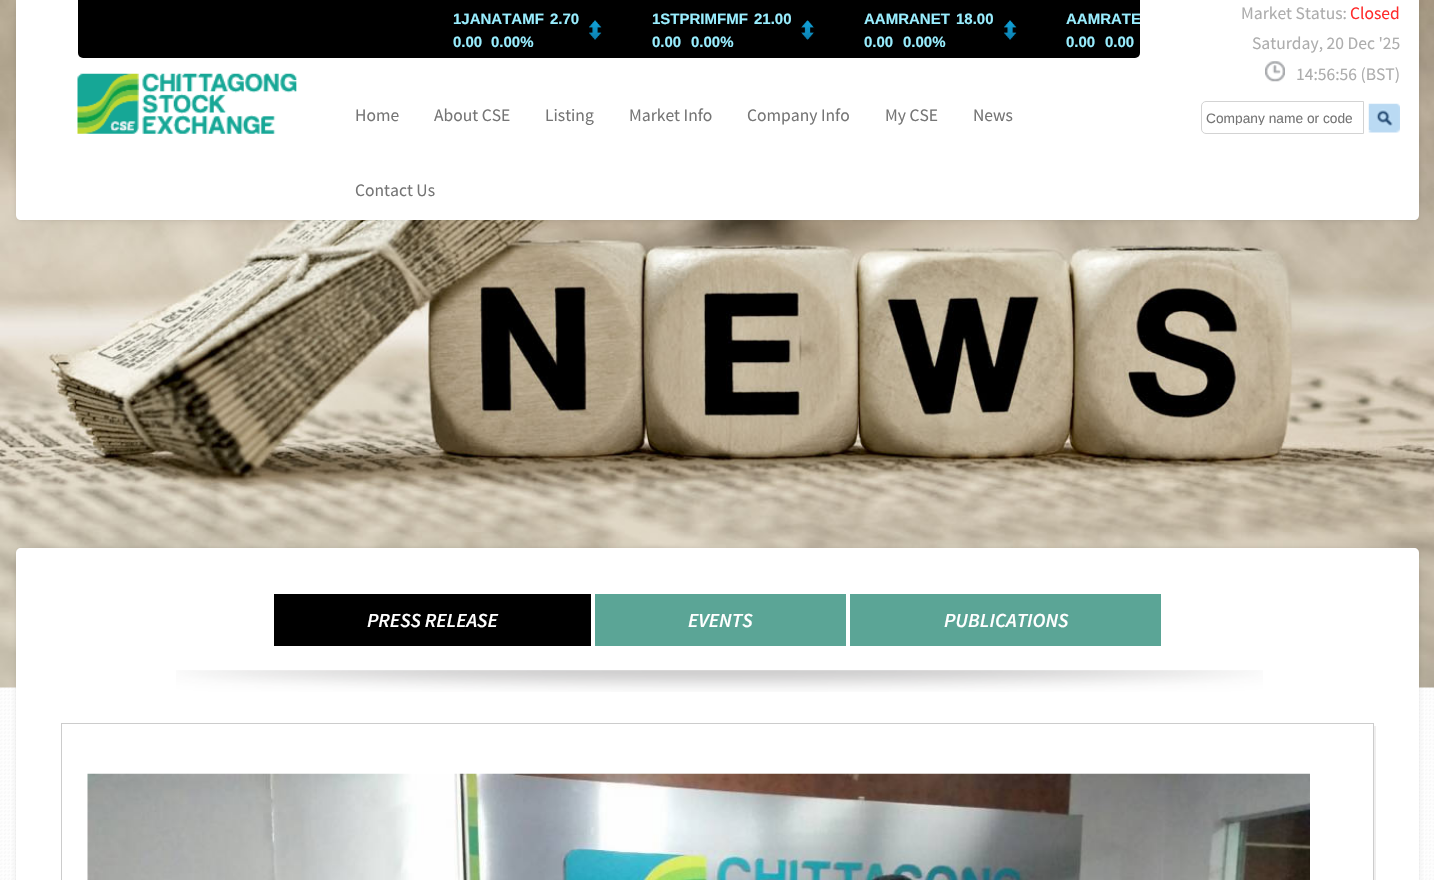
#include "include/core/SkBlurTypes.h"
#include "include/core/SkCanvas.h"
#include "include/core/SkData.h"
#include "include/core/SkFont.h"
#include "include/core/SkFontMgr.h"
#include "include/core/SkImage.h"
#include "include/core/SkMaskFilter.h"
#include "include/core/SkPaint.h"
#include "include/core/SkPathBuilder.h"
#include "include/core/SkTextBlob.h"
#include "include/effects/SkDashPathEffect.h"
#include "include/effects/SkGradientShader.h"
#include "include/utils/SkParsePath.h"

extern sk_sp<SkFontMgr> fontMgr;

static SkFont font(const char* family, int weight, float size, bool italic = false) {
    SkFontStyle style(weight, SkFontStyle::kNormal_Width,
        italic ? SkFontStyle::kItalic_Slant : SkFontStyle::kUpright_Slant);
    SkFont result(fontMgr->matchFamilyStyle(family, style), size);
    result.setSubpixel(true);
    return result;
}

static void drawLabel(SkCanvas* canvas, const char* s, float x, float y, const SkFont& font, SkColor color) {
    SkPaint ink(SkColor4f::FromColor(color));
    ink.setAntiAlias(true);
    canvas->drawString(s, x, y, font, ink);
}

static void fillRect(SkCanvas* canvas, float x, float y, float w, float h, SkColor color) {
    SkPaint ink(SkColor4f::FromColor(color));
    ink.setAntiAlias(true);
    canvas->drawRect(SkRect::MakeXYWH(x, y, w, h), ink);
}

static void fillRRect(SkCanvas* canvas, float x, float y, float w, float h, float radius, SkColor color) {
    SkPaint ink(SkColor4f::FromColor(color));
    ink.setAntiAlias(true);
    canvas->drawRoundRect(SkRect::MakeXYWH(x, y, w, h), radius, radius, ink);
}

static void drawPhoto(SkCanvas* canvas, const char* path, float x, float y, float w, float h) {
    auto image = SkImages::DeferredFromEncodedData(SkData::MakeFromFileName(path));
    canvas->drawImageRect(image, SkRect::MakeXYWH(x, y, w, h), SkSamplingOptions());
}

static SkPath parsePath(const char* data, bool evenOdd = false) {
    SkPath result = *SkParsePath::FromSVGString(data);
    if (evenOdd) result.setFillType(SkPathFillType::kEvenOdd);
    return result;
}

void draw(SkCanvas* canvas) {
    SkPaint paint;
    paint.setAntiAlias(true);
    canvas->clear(0xFFFFFFFF);
    drawPhoto(canvas, "assets/img1.png", 0, 687, 1434, 193);
    drawPhoto(canvas, "assets/img2.png", 0, 0, 1434, 688);
    paint.setColor(0x1A000000);
    paint.setMaskFilter(SkMaskFilter::MakeBlur(kNormal_SkBlurStyle, 2));
    canvas->drawRoundRect(SkRect::MakeXYWH(16, 0, 1403, 220), 5, 5, paint);
    paint.setMaskFilter(nullptr);
    paint.setColor(0xFFFFFFFF);
    canvas->drawPath(parsePath("M16 0H1419V215C1419 218 1417 220 1414 220H21C18 220 16 218 16 215Z"), paint);
    fillRRect(canvas, 78, -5, 1062, 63, 5, 0xFF000000);
    SkFont font1 = font("Liberation Sans", 700, 15);
    drawLabel(canvas, "1JANATAMF", 453, 24, font1, 0xFF99EEFF);
    drawLabel(canvas, "2.70", 550, 24, font1, 0xFF99EEFF);
    drawLabel(canvas, "0.00", 453, 47, font1, 0xFF99EEFF);
    drawLabel(canvas, "0.00%", 491, 47, font1, 0xFF99EEFF);
    drawPhoto(canvas, "assets/img3.png", 589, 20, 13, 20);
    drawLabel(canvas, "1STPRIMFMF", 652, 24, font1, 0xFF99EEFF);
    drawLabel(canvas, "21.00", 754, 24, font1, 0xFF99EEFF);
    drawLabel(canvas, "0.00", 652, 47, font1, 0xFF99EEFF);
    drawLabel(canvas, "0.00%", 691, 47, font1, 0xFF99EEFF);
    drawPhoto(canvas, "assets/img4.png", 801, 20, 14, 20);
    drawLabel(canvas, "AAMRANET", 864, 24, font1, 0xFF99EEFF);
    drawLabel(canvas, "18.00", 956, 24, font1, 0xFF99EEFF);
    drawLabel(canvas, "0.00", 864, 47, font1, 0xFF99EEFF);
    drawLabel(canvas, "0.00%", 903, 47, font1, 0xFF99EEFF);
    drawPhoto(canvas, "assets/img5.png", 1004, 20, 13, 20);
    canvas->save();
    canvas->clipRect(SkRect::MakeXYWH(80, 8, 1060, 41));
    drawLabel(canvas, "AAMRATE", 1066, 24, font1, 0xFF99EEFF);
    canvas->restore();
    drawLabel(canvas, "0.00", 1066, 47, font1, 0xFF99EEFF);
    drawLabel(canvas, "0.00", 1105, 47, font1, 0xFF99EEFF);
    drawPhoto(canvas, "assets/img6.png", 77, 73, 220, 61);
    SkFont font2 = font("Source Sans Pro", 400, 17.5f);
    drawLabel(canvas, "Home", 355, 121, font2, 0xFF757575);
    drawLabel(canvas, "About CSE", 434, 121, font2, 0xFF757575);
    drawLabel(canvas, "Listing", 545, 121, font2, 0xFF757575);
    drawLabel(canvas, "Market Info", 629, 121, font2, 0xFF757575);
    drawLabel(canvas, "Company Info", 747, 121, font2, 0xFF757575);
    drawLabel(canvas, "My CSE", 885, 121, font2, 0xFF757575);
    drawLabel(canvas, "News", 973, 121, font2, 0xFF757575);
    drawLabel(canvas, "Contact Us", 355, 196, font2, 0xFF757575);
    drawLabel(canvas, "Market Status:", 1241, 19, font2, 0xFFADADAD);
    drawLabel(canvas, "Closed", 1350, 19, font2, 0xFFFF2B2B);
    drawLabel(canvas, "Saturday, 20 Dec '25", 1252, 49, font2, 0xFFADADAD);
    drawPhoto(canvas, "assets/img7.png", 1265, 61, 20, 21);
    drawLabel(canvas, "14:56:56 (BST)", 1296, 80, font2, 0xFFADADAD);
    paint.setStroke(true);
    paint.setStrokeWidth(1);
    paint.setColor(0xFFD3D3D3);
    canvas->drawPath(parsePath("M1206 101.5H1363.5V133.5H1206C1203.5 133.5 1201.5 131.5 1201.5 129V106C1201.5 103.5 1203.5 101.5 1206 101.5Z"), paint);
    canvas->save();
    canvas->clipRect(SkRect::MakeXYWH(1206, 110, 153, 15));
    SkFont font3 = font("Liberation Sans", 400, 13.75f);
    drawLabel(canvas, "Company name or code", 1206, 123, font3, 0xFF757575);
    canvas->restore();
    drawPhoto(canvas, "assets/img8.png", 1368, 103, 32, 30);
    paint.setStroke(false);
    paint.setColor(0x1A000000);
    paint.setMaskFilter(SkMaskFilter::MakeBlur(kNormal_SkBlurStyle, 2));
    canvas->drawRoundRect(SkRect::MakeXYWH(16, 548, 1403, 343), 5, 5, paint);
    paint.setMaskFilter(nullptr);
    paint.setColor(0xFFFFFFFF);
    canvas->drawPath(parsePath("M21 548H1414C1417 548 1419 550 1419 553V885H16V553C16 550 18 548 21 548Z"), paint);
    fillRect(canvas, 274, 594, 317, 52, 0xFF000000);
    SkFont font4 = font("Source Sans Pro", 600, 20, true);
    drawLabel(canvas, "PRESS RELEASE", 367, 627, font4, 0xFFFFFFFF);
    fillRect(canvas, 595, 594, 251, 52, 0xFF5BA596);
    drawLabel(canvas, "EVENTS", 688, 627, font4, 0xFFFFFFFF);
    fillRect(canvas, 850, 594, 311, 52, 0xFF5BA596);
    drawLabel(canvas, "PUBLICATIONS", 944, 627, font4, 0xFFFFFFFF);
    drawPhoto(canvas, "assets/img9.png", 176, 670, 1087, 22);
    paint.setColor(0xFFEFEEEE);
    canvas->drawPath(parsePath("M64 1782V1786H1376V726H1374V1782Z"), paint);
    paint.setStroke(true);
    paint.setColor(0xFFCCCCCC);
    canvas->drawRect(SkRect::MakeXYWH(61.5f, 723.5f, 1312, 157), paint);
    drawPhoto(canvas, "assets/img10.png", 87, 773, 1223, 107);
}
